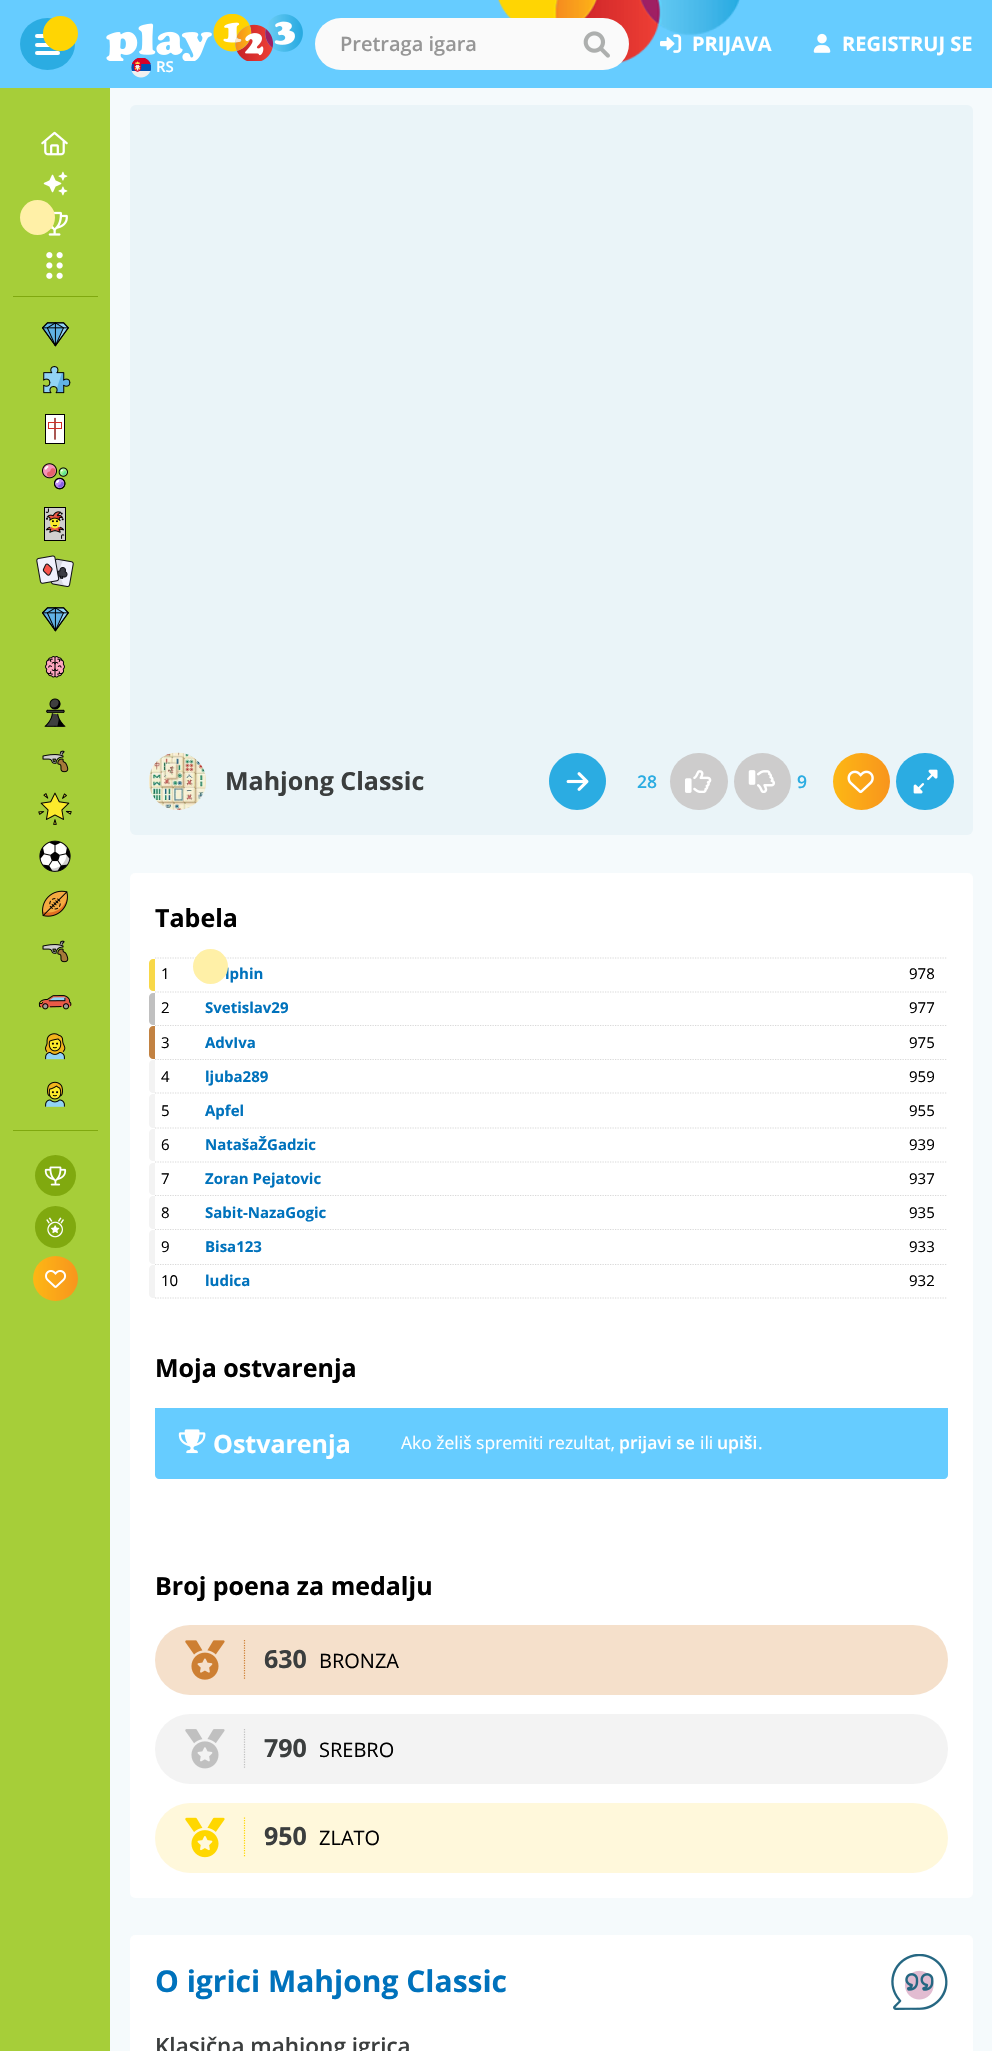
#include "include/core/SkBlurTypes.h"
#include "include/core/SkCanvas.h"
#include "include/core/SkData.h"
#include "include/core/SkFont.h"
#include "include/core/SkFontMgr.h"
#include "include/core/SkImage.h"
#include "include/core/SkMaskFilter.h"
#include "include/core/SkPaint.h"
#include "include/core/SkPathBuilder.h"
#include "include/core/SkTextBlob.h"
#include "include/effects/SkDashPathEffect.h"
#include "include/effects/SkGradientShader.h"
#include "include/utils/SkParsePath.h"

extern sk_sp<SkFontMgr> fontMgr;

static SkFont font(const char* family, int weight, float size, bool italic = false) {
    SkFontStyle style(weight, SkFontStyle::kNormal_Width,
        italic ? SkFontStyle::kItalic_Slant : SkFontStyle::kUpright_Slant);
    SkFont result(fontMgr->matchFamilyStyle(family, style), size);
    result.setSubpixel(true);
    return result;
}

static void drawLabel(SkCanvas* canvas, const char* s, float x, float y, const SkFont& font, SkColor color) {
    SkPaint ink(SkColor4f::FromColor(color));
    ink.setAntiAlias(true);
    canvas->drawString(s, x, y, font, ink);
}

static void fillRect(SkCanvas* canvas, float x, float y, float w, float h, SkColor color) {
    SkPaint ink(SkColor4f::FromColor(color));
    ink.setAntiAlias(true);
    canvas->drawRect(SkRect::MakeXYWH(x, y, w, h), ink);
}

static void fillRRect(SkCanvas* canvas, float x, float y, float w, float h, float radius, SkColor color) {
    SkPaint ink(SkColor4f::FromColor(color));
    ink.setAntiAlias(true);
    canvas->drawRoundRect(SkRect::MakeXYWH(x, y, w, h), radius, radius, ink);
}

static void drawPhoto(SkCanvas* canvas, const char* path, float x, float y, float w, float h) {
    auto image = SkImages::DeferredFromEncodedData(SkData::MakeFromFileName(path));
    canvas->drawImageRect(image, SkRect::MakeXYWH(x, y, w, h), SkSamplingOptions());
}

static SkPath parsePath(const char* data, bool evenOdd = false) {
    SkPath result = *SkParsePath::FromSVGString(data);
    if (evenOdd) result.setFillType(SkPathFillType::kEvenOdd);
    return result;
}

void draw(SkCanvas* canvas) {
    SkPaint paint;
    paint.setAntiAlias(true);
    canvas->clear(0xFFF5FAFC);
    fillRect(canvas, 0, 0, 992, 88, 0xFF66CCFF);
    paint.setColor(0xFF2BACE2);
    canvas->drawOval(SkRect::MakeXYWH(20, 18, 55, 52), paint);
    fillRRect(canvas, 35, 34, 25, 4, 2, 0xFFFFFFFF);
    fillRRect(canvas, 35, 43, 25, 4, 2, 0xFFFFFFFF);
    paint.setColor(0xFFFFD503);
    canvas->drawCircle(60.5f, 33.5f, 17.5f, paint);
    fillRRect(canvas, 35, 51, 25, 4, 2, 0xFFFFFFFF);
    drawPhoto(canvas, "assets/img1.png", 497, 0, 243, 64);
    fillRRect(canvas, 315, 18, 314, 52, 26, 0xFFFAFAFA);
    SkFont font1 = font("Open Sans", 600, 20);
    drawLabel(canvas, "Pretraga igara", 340, 51, font1, 0xFF969696);
    drawPhoto(canvas, "assets/img2.png", 583, 31, 27, 27);
    drawPhoto(canvas, "assets/img3.png", 660, 34, 22, 19);
    SkFont font2 = font("Open Sans", 700, 20);
    drawLabel(canvas, "PRIJAVA", 692, 51, font2, 0xFFFFFFFF);
    drawPhoto(canvas, "assets/img4.png", 813, 33, 18, 20);
    drawLabel(canvas, "REGISTRUJ SE", 842, 51, font2, 0xFFFFFFFF);
    drawPhoto(canvas, "assets/img5.png", 106, 14, 197, 47);
    drawPhoto(canvas, "assets/img6.png", 131, 58, 20, 20);
    SkFont font3 = font("Open Sans", 600, 15);
    drawLabel(canvas, "RS", 156, 72, font3, 0xFFFFFFFF);
    fillRect(canvas, 0, 88, 110, 1963, 0xFFA6CE39);
    drawPhoto(canvas, "assets/img7.png", 41, 131, 27, 25);
    drawPhoto(canvas, "assets/img8.png", 43, 171, 25, 25);
    drawPhoto(canvas, "assets/img9.png", 48, 211, 20, 25);
    paint.setColor(0xFFFFF0A7);
    canvas->drawCircle(37.5f, 217.5f, 17.5f, paint);
    fillRect(canvas, 13, 296, 85, 1, 0xFF80A90F);
    drawPhoto(canvas, "assets/img10.png", 46, 252, 17, 27);
    drawPhoto(canvas, "assets/img11.png", 42, 322, 27, 25);
    drawPhoto(canvas, "assets/img12.png", 43, 366, 28, 28);
    drawPhoto(canvas, "assets/img13.png", 45, 414, 20, 30);
    drawPhoto(canvas, "assets/img14.png", 42, 463, 26, 27);
    drawPhoto(canvas, "assets/img15.png", 44, 507, 22, 34);
    drawPhoto(canvas, "assets/img16.png", 36, 555, 38, 32);
    drawPhoto(canvas, "assets/img11.png", 42, 607, 27, 25);
    drawPhoto(canvas, "assets/img17.png", 45, 656, 20, 22);
    drawPhoto(canvas, "assets/img18.png", 44, 698, 22, 29);
    drawPhoto(canvas, "assets/img19.png", 42, 750, 27, 23);
    drawPhoto(canvas, "assets/img20.png", 38, 792, 34, 33);
    drawPhoto(canvas, "assets/img21.png", 39, 840, 32, 32);
    drawPhoto(canvas, "assets/img22.png", 42, 890, 26, 27);
    drawPhoto(canvas, "assets/img19.png", 42, 940, 27, 23);
    drawPhoto(canvas, "assets/img23.png", 38, 995, 34, 15);
    drawPhoto(canvas, "assets/img24.png", 45, 1033, 21, 27);
    drawPhoto(canvas, "assets/img25.png", 45, 1081, 20, 26);
    fillRect(canvas, 13, 1130, 85, 1, 0xFF80A90F);
    paint.setColor(0xFF80A90F);
    canvas->drawCircle(55.5f, 1175.5f, 20.5f, paint);
    drawPhoto(canvas, "assets/img26.png", 44, 1166, 23, 20);
    fillRRect(canvas, 35, 1206, 41, 42, 20.5f, 0xFF80A90F);
    drawPhoto(canvas, "assets/img27.png", 46, 1217, 18, 21);
    {
        const SkColor colors[] = {0xFFFDB714, 0xFFF8951D};
        const float stops[] = {0, 1};
        const SkPoint ends[] = {{33, 1279}, {78, 1279}};
        paint.setShader(SkGradientShader::MakeLinear(ends, colors, stops, 2, SkTileMode::kClamp));
        paint.setAlpha(255);
    }
    canvas->drawCircle(55.5f, 1278.5f, 22.5f, paint);
    drawPhoto(canvas, "assets/img28.png", 45, 1270, 22, 18);
    fillRRect(canvas, 130, 105, 843, 730, 6, 0xFFEAF4F8);
    drawPhoto(canvas, "assets/img29.png", 149, 752, 57, 58);
    SkFont font4 = font("Open Sans", 700, 25);
    drawLabel(canvas, "Mahjong Classic", 225, 790, font4, 0xFF3B3E3E);
    paint.setShader(nullptr);
    paint.setColor(0xFF2BACE2);
    canvas->drawPath(parsePath("M606 781C606 797 593 810 577 810C562 810 549 797 549 781C549 766 562 753 577 753C593 753 606 766 606 781Z"), paint);
    drawPhoto(canvas, "assets/img30.png", 566, 772, 23, 19);
    SkFont font5 = font("Open Sans", 600, 17.5f);
    drawLabel(canvas, "28", 637, 788, font5, 0xFF2BACE2);
    fillRRect(canvas, 670, 753, 58, 57, 28.5f, 0xFFCDCCCC);
    drawPhoto(canvas, "assets/img31.png", 685, 770, 27, 23);
    paint.setColor(0xFFCDCCCC);
    canvas->drawCircle(762.5f, 781.5f, 28.5f, paint);
    drawPhoto(canvas, "assets/img32.png", 748, 770, 27, 23);
    drawLabel(canvas, "9", 797, 788, font5, 0xFF2BACE2);
    {
        const SkColor colors[] = {0xFFFDB714, 0xFFF8951D};
        const float stops[] = {0, 1};
        const SkPoint ends[] = {{833, 781}, {890, 781}};
        paint.setShader(SkGradientShader::MakeLinear(ends, colors, stops, 2, SkTileMode::kClamp));
        paint.setAlpha(255);
    }
    canvas->drawCircle(861.5f, 781.5f, 28.5f, paint);
    drawPhoto(canvas, "assets/img33.png", 847, 770, 27, 24);
    fillRRect(canvas, 896, 753, 58, 57, 28.5f, 0xFF2BACE2);
    drawPhoto(canvas, "assets/img34.png", 913, 769, 25, 25);
    fillRRect(canvas, 130, 873, 843, 1025, 5, 0xFFFFFFFF);
    drawLabel(canvas, "Tabela", 155, 927, font4, 0xFF000000);
    paint.setStroke(true);
    paint.setStrokeWidth(1.2f);
    paint.setShader(nullptr);
    paint.setColor(0xFFD9D9D9);
    paint.setPathEffect(SkDashPathEffect::Make({{1.25f, 1.25f}}, 0));
    canvas->drawPath(parsePath("M155 958H947.5"), paint);
    paint.setPathEffect(nullptr);
    paint.setPathEffect(SkDashPathEffect::Make({{1.25f, 1.25f}}, 0));
    canvas->drawPath(parsePath("M155 992H947.5"), paint);
    paint.setPathEffect(nullptr);
    paint.setStroke(false);
    paint.setColor(0xFFF8D848);
    canvas->drawPath(parsePath("M153 959H155V991H153C151 991 149 989 149 987V963C149 961 151 959 153 959Z"), paint);
    SkFont font6 = font("Open Sans", 400, 15);
    drawLabel(canvas, "1", 161, 979, font6, 0xFF000000);
    SkFont font7 = font("Open Sans", 700, 15);
    drawLabel(canvas, "lphin", 225, 979, font7, 0xFF0072BC);
    paint.setColor(0xFFFFF0A7);
    canvas->drawCircle(210.5f, 966.5f, 17.5f, paint);
    drawLabel(canvas, "978", 909, 979, font6, 0xFF000000);
    paint.setStroke(true);
    paint.setColor(0xFFD9D9D9);
    paint.setPathEffect(SkDashPathEffect::Make({{1.25f, 1.25f}}, 0));
    canvas->drawPath(parsePath("M155 1025.5H947.5"), paint);
    paint.setPathEffect(nullptr);
    paint.setStroke(false);
    paint.setColor(0xFFC0C0C0);
    canvas->drawPath(parsePath("M153 993H155V1025H153C151 1025 149 1023 149 1021V997C149 995 151 993 153 993Z"), paint);
    drawLabel(canvas, "2", 161, 1013, font6, 0xFF000000);
    drawLabel(canvas, "Svetislav29", 205, 1013, font7, 0xFF0072BC);
    drawLabel(canvas, "977", 909, 1013, font6, 0xFF000000);
    paint.setStroke(true);
    paint.setColor(0xFFD9D9D9);
    paint.setPathEffect(SkDashPathEffect::Make({{1.25f, 1.25f}}, 0));
    canvas->drawPath(parsePath("M155 1059.5H947.5"), paint);
    paint.setPathEffect(nullptr);
    paint.setStroke(false);
    paint.setColor(0xFFC28242);
    canvas->drawPath(parsePath("M153 1026H155V1059H153C151 1059 149 1057 149 1055V1030C149 1028 151 1026 153 1026Z"), paint);
    drawLabel(canvas, "3", 161, 1048, font6, 0xFF000000);
    drawLabel(canvas, "AdvIva", 205, 1048, font7, 0xFF0072BC);
    drawLabel(canvas, "975", 909, 1048, font6, 0xFF000000);
    paint.setStroke(true);
    paint.setColor(0xFFD9D9D9);
    paint.setPathEffect(SkDashPathEffect::Make({{1.25f, 1.25f}}, 0));
    canvas->drawPath(parsePath("M155 1093H947.5"), paint);
    paint.setPathEffect(nullptr);
    paint.setStroke(false);
    paint.setColor(0xFFF3F3F3);
    canvas->drawPath(parsePath("M153 1060H155V1093H153C151 1093 149 1091 149 1089V1064C149 1062 151 1060 153 1060Z"), paint);
    drawLabel(canvas, "4", 161, 1082, font6, 0xFF000000);
    drawLabel(canvas, "ljuba289", 205, 1082, font7, 0xFF0072BC);
    drawLabel(canvas, "959", 909, 1082, font6, 0xFF000000);
    paint.setStroke(true);
    paint.setColor(0xFFD9D9D9);
    paint.setPathEffect(SkDashPathEffect::Make({{1.25f, 1.25f}}, 0));
    canvas->drawPath(parsePath("M155 1128H947.5"), paint);
    paint.setPathEffect(nullptr);
    paint.setStroke(false);
    paint.setColor(0xFFF3F3F3);
    canvas->drawPath(parsePath("M153 1094H155V1128H153C151 1128 149 1126 149 1124V1098C149 1096 151 1094 153 1094Z"), paint);
    drawLabel(canvas, "5", 161, 1116, font6, 0xFF000000);
    drawLabel(canvas, "Apfel", 205, 1116, font7, 0xFF0072BC);
    drawLabel(canvas, "955", 909, 1116, font6, 0xFF000000);
    paint.setStroke(true);
    paint.setColor(0xFFD9D9D9);
    paint.setPathEffect(SkDashPathEffect::Make({{1.25f, 1.25f}}, 0));
    canvas->drawPath(parsePath("M155 1162H947.5"), paint);
    paint.setPathEffect(nullptr);
    paint.setStroke(false);
    paint.setColor(0xFFF3F3F3);
    canvas->drawPath(parsePath("M153 1129H155V1161H153C151 1161 149 1159 149 1157V1133C149 1131 151 1129 153 1129Z"), paint);
    drawLabel(canvas, "6", 161, 1150, font6, 0xFF000000);
    drawLabel(canvas, "NatašaŽGadzic", 205, 1150, font7, 0xFF0072BC);
    drawLabel(canvas, "939", 909, 1150, font6, 0xFF000000);
    paint.setStroke(true);
    paint.setColor(0xFFD9D9D9);
    paint.setPathEffect(SkDashPathEffect::Make({{1.25f, 1.25f}}, 0));
    canvas->drawPath(parsePath("M155 1195.5H947.5"), paint);
    paint.setPathEffect(nullptr);
    paint.setStroke(false);
    paint.setColor(0xFFF3F3F3);
    canvas->drawPath(parsePath("M153 1163H155V1195H153C151 1195 149 1193 149 1191V1167C149 1165 151 1163 153 1163Z"), paint);
    drawLabel(canvas, "7", 161, 1184, font6, 0xFF000000);
    drawLabel(canvas, "Zoran Pejatovic", 205, 1184, font7, 0xFF0072BC);
    drawLabel(canvas, "937", 909, 1184, font6, 0xFF000000);
    paint.setStroke(true);
    paint.setColor(0xFFD9D9D9);
    paint.setPathEffect(SkDashPathEffect::Make({{1.25f, 1.25f}}, 0));
    canvas->drawPath(parsePath("M155 1229.5H947.5"), paint);
    paint.setPathEffect(nullptr);
    paint.setStroke(false);
    paint.setColor(0xFFF3F3F3);
    canvas->drawPath(parsePath("M153 1196H155V1229H153C151 1229 149 1227 149 1225V1200C149 1198 151 1196 153 1196Z"), paint);
    drawLabel(canvas, "8", 161, 1218, font6, 0xFF000000);
    drawLabel(canvas, "Sabit-NazaGogic", 205, 1218, font7, 0xFF0072BC);
    drawLabel(canvas, "935", 909, 1218, font6, 0xFF000000);
    paint.setStroke(true);
    paint.setColor(0xFFD9D9D9);
    paint.setPathEffect(SkDashPathEffect::Make({{1.25f, 1.25f}}, 0));
    canvas->drawPath(parsePath("M155 1264.5H947.5"), paint);
    paint.setPathEffect(nullptr);
    paint.setStroke(false);
    paint.setColor(0xFFF3F3F3);
    canvas->drawPath(parsePath("M153 1230H155V1264H153C151 1264 149 1262 149 1260V1234C149 1232 151 1230 153 1230Z"), paint);
    drawLabel(canvas, "9", 161, 1252, font6, 0xFF000000);
    drawLabel(canvas, "Bisa123", 205, 1252, font7, 0xFF0072BC);
    drawLabel(canvas, "933", 909, 1252, font6, 0xFF000000);
    paint.setStroke(true);
    paint.setColor(0xFFD9D9D9);
    paint.setPathEffect(SkDashPathEffect::Make({{1.25f, 1.25f}}, 0));
    canvas->drawPath(parsePath("M155 1298H947.5"), paint);
    paint.setPathEffect(nullptr);
    paint.setStroke(false);
    paint.setColor(0xFFF3F3F3);
    canvas->drawPath(parsePath("M153 1265H155V1298H153C151 1298 149 1296 149 1294V1269C149 1267 151 1265 153 1265Z"), paint);
    drawLabel(canvas, "10", 161, 1286, font6, 0xFF000000);
    drawLabel(canvas, "ludica", 205, 1286, font7, 0xFF0072BC);
    drawLabel(canvas, "932", 909, 1286, font6, 0xFF000000);
    drawLabel(canvas, "Moja ostvarenja", 155, 1377, font4, 0xFF000000);
    paint.setColor(0xFF66CCFF);
    canvas->drawPath(parsePath("M155 1408H948V1475C948 1477 946 1479 944 1479H159C157 1479 155 1477 155 1475Z"), paint);
    drawPhoto(canvas, "assets/img35.png", 178, 1429, 28, 25);
    drawLabel(canvas, "Ostvarenja", 213, 1453, font4, 0xFFFFFFFF);
    SkFont font8 = font("Open Sans", 400, 17.5f);
    drawLabel(canvas, "Ako želiš spremiti rezultat,", 401, 1449, font8, 0xFFFFFFFF);
    drawLabel(canvas, "prijavi se", 619, 1449, font5, 0xFFFFFFFF);
    drawLabel(canvas, "ili", 700, 1449, font8, 0xFFFFFFFF);
    drawLabel(canvas, "upiši", 717, 1449, font5, 0xFFFFFFFF);
    drawLabel(canvas, ".", 758, 1449, font8, 0xFFFFFFFF);
    drawLabel(canvas, "Broj poena za medalju", 155, 1595, font4, 0xFF000000);
    fillRRect(canvas, 155, 1625, 793, 70, 35, 0xFFF5E0CB);
    paint.setStroke(true);
    paint.setColor(0xFFCD7F32);
    paint.setPathEffect(SkDashPathEffect::Make({{1.25f, 1.25f}}, 0));
    canvas->drawPath(parsePath("M244.5 1640V1680"), paint);
    paint.setPathEffect(nullptr);
    drawPhoto(canvas, "assets/img36.png", 185, 1640, 40, 40);
    drawLabel(canvas, "630", 264, 1668, font4, 0xFF3B3E3E);
    SkFont font9 = font("Open Sans", 400, 20);
    drawLabel(canvas, "BRONZA", 319, 1668, font9, 0xFF000000);
    fillRRect(canvas, 155, 1714, 793, 70, 35, 0xFFF3F3F3);
    paint.setColor(0xFFC0C0C0);
    paint.setPathEffect(SkDashPathEffect::Make({{1.25f, 1.25f}}, 0));
    canvas->drawPath(parsePath("M244.5 1729V1769"), paint);
    paint.setPathEffect(nullptr);
    drawPhoto(canvas, "assets/img37.png", 185, 1729, 40, 40);
    drawLabel(canvas, "790", 264, 1757, font4, 0xFF3B3E3E);
    drawLabel(canvas, "SREBRO", 319, 1757, font9, 0xFF000000);
    fillRRect(canvas, 155, 1803, 793, 70, 35, 0xFFFFF8DB);
    paint.setColor(0xFFFFD700);
    paint.setPathEffect(SkDashPathEffect::Make({{1.25f, 1.25f}}, 0));
    canvas->drawPath(parsePath("M244.5 1817.5V1857.5"), paint);
    paint.setPathEffect(nullptr);
    drawPhoto(canvas, "assets/img38.png", 185, 1817, 40, 41);
    drawLabel(canvas, "950", 264, 1845, font4, 0xFF3B3E3E);
    drawLabel(canvas, "ZLATO", 319, 1845, font9, 0xFF000000);
    fillRRect(canvas, 130, 1935, 843, 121, 5, 0xFFFFFFFF);
    drawPhoto(canvas, "assets/img39.png", 891, 1954, 57, 56);
    SkFont font10 = font("Open Sans", 700, 30);
    drawLabel(canvas, "O igrici Mahjong Classic", 155, 1992, font10, 0xFF0072BC);
    SkFont font11 = font("Open Sans", 600, 22.5f);
    drawLabel(canvas, "Klasična mahjong igrica", 155, 2054, font11, 0xFF3B3E3E);
}
